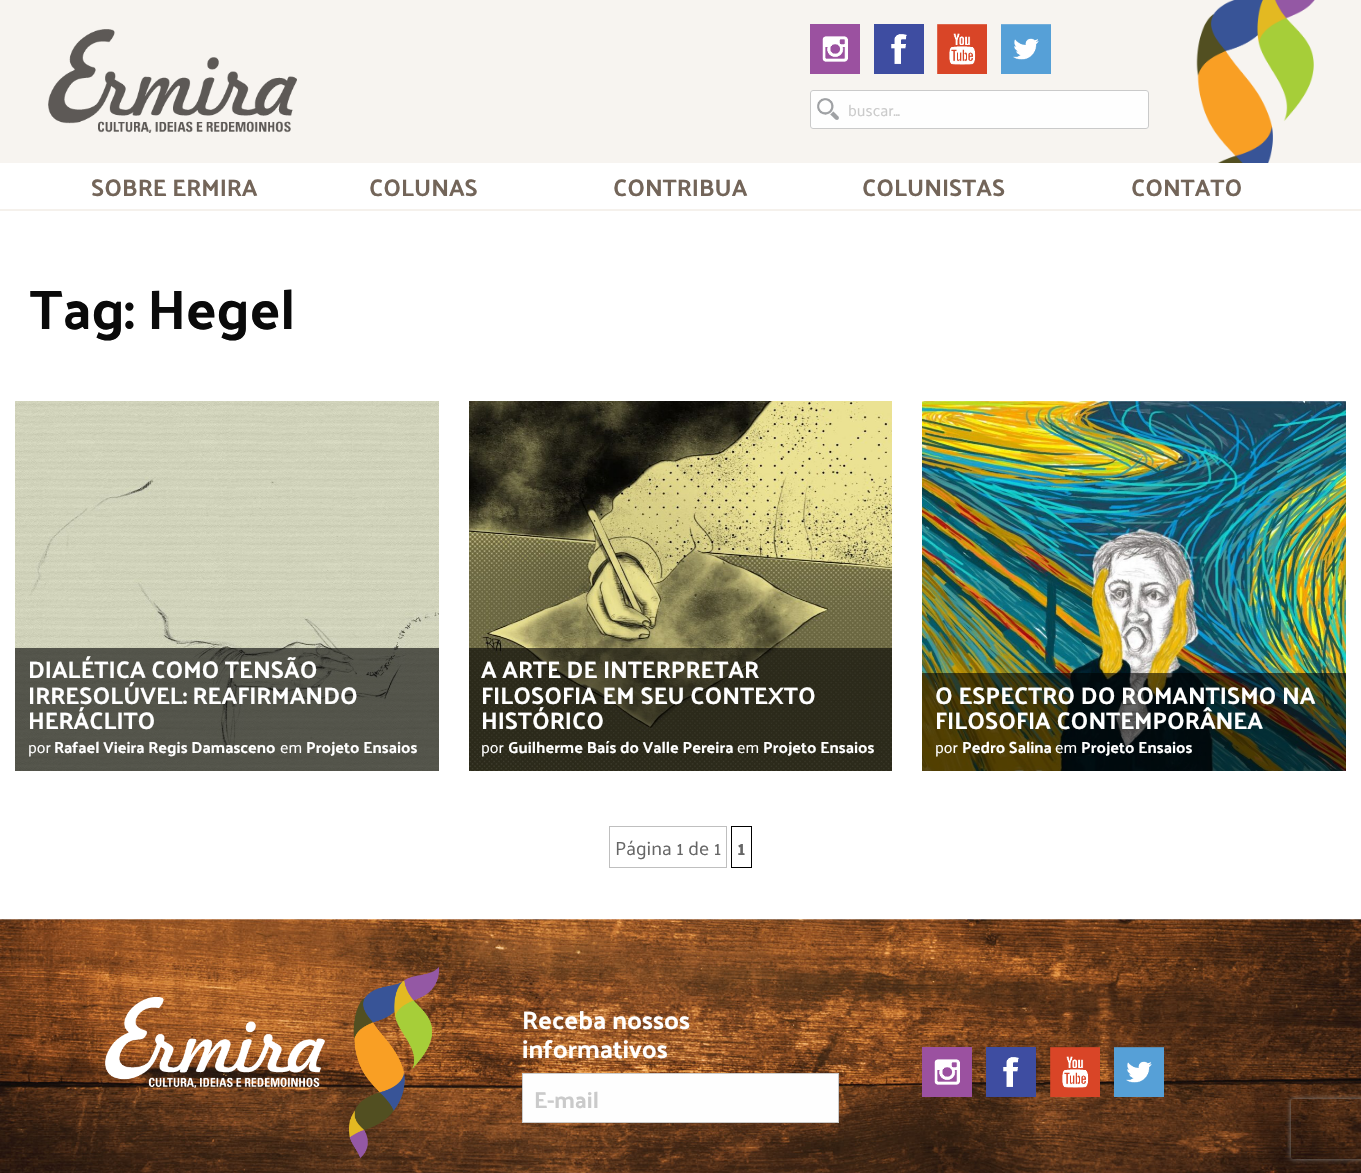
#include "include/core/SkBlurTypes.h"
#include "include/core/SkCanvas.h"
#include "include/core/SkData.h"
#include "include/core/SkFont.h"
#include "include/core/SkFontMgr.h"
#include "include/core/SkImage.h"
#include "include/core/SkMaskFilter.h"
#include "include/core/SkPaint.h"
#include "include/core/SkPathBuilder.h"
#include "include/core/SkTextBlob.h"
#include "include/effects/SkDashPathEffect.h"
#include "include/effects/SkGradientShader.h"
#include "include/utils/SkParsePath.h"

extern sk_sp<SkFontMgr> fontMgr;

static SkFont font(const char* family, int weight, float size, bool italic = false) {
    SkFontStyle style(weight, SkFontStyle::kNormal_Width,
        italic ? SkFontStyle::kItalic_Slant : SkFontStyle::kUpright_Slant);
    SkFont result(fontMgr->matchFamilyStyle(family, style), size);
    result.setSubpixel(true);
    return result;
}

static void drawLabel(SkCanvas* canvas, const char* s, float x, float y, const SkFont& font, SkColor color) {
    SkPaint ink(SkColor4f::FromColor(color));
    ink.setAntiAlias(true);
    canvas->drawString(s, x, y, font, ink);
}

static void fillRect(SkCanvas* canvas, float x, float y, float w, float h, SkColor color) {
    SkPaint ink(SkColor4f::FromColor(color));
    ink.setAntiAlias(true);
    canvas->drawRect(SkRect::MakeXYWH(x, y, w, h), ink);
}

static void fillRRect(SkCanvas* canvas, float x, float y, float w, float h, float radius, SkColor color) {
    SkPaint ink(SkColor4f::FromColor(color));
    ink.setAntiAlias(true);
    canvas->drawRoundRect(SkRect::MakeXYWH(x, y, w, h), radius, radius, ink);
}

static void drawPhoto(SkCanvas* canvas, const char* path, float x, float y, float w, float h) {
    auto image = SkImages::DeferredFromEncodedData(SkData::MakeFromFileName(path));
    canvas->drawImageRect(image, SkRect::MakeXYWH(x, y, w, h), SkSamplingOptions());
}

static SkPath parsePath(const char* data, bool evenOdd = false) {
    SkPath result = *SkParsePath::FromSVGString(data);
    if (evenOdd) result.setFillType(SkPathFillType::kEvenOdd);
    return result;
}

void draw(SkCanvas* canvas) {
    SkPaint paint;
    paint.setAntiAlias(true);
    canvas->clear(0xFFFFFFFF);
    fillRect(canvas, 0, 0, 1361, 163, 0xFFF7F4F0);
    drawPhoto(canvas, "assets/img1.png", 1196, 0, 119, 163);
    drawPhoto(canvas, "assets/img2.png", 48, 29, 249, 104);
    drawPhoto(canvas, "assets/img3.png", 810, 24, 50, 50);
    drawPhoto(canvas, "assets/img4.png", 874, 24, 50, 50);
    drawPhoto(canvas, "assets/img5.png", 937, 24, 50, 50);
    drawPhoto(canvas, "assets/img6.png", 1001, 24, 50, 50);
    fillRRect(canvas, 810, 90, 339, 39, 3, 0xFFFEFEFE);
    drawPhoto(canvas, "assets/img7.png", 817, 98, 22, 22);
    paint.setStroke(true);
    paint.setStrokeWidth(1);
    paint.setColor(0xFFCACACA);
    canvas->drawRoundRect(SkRect::MakeXYWH(810.5f, 90.5f, 338, 38), 2.5f, 2.5f, paint);
    SkFont font1 = font("Palanquin", 400, 16);
    drawLabel(canvas, "buscar...", 848, 116, font1, 0xFFCACACA);
    fillRect(canvas, 0, 209, 1361, 2, 0xFFF5F1EC);
    SkFont font2 = font("Palanquin", 700, 24);
    drawLabel(canvas, "SOBRE ERMIRA", 91, 196, font2, 0xFF736559);
    drawLabel(canvas, "COLUNAS", 369, 196, font2, 0xFF736559);
    drawLabel(canvas, "CONTRIBUA", 613, 196, font2, 0xFF736559);
    drawLabel(canvas, "COLUNISTAS", 862, 196, font2, 0xFF736559);
    drawLabel(canvas, "CONTATO", 1131, 196, font2, 0xFF736559);
    SkFont font3 = font("Palanquin", 700, 56);
    drawLabel(canvas, "Tag: Hegel", 30, 329, font3, 0xFF0A0A0A);
    drawPhoto(canvas, "assets/img8.png", 15, 401, 424, 370);
    fillRect(canvas, 15, 648, 424, 123, 0x99000000);
    drawLabel(canvas, "DIALÉTICA COMO TENSÃO", 28, 678, font2, 0xFFFFFFFF);
    drawLabel(canvas, "IRRESOLÚVEL: REAFIRMANDO", 28, 704, font2, 0xFFFFFFFF);
    drawLabel(canvas, "HERÁCLITO", 28, 729, font2, 0xFFFFFFFF);
    drawLabel(canvas, "por", 28, 753, font1, 0xFFFFFFFF);
    SkFont font4 = font("Palanquin", 700, 16);
    drawLabel(canvas, "Rafael Vieira Regis Damasceno", 54, 753, font4, 0xFFFFFFFF);
    drawLabel(canvas, "em", 280, 753, font1, 0xFFFFFFFF);
    drawLabel(canvas, "Projeto Ensaios", 306, 753, font4, 0xFFFFFFFF);
    drawPhoto(canvas, "assets/img9.png", 469, 401, 423, 370);
    fillRect(canvas, 469, 648, 423, 123, 0x99000000);
    drawLabel(canvas, "A ARTE DE INTERPRETAR", 481, 678, font2, 0xFFFFFFFF);
    drawLabel(canvas, "FILOSOFIA EM SEU CONTEXTO", 481, 704, font2, 0xFFFFFFFF);
    drawLabel(canvas, "HISTÓRICO", 481, 729, font2, 0xFFFFFFFF);
    drawLabel(canvas, "por", 481, 753, font1, 0xFFFFFFFF);
    drawLabel(canvas, "Guilherme Baís do Valle Pereira", 508, 753, font4, 0xFFFFFFFF);
    drawLabel(canvas, "em", 737, 753, font1, 0xFFFFFFFF);
    drawLabel(canvas, "Projeto Ensaios", 763, 753, font4, 0xFFFFFFFF);
    drawPhoto(canvas, "assets/img10.png", 922, 401, 424, 370);
    fillRect(canvas, 922, 673, 424, 98, 0x99000000);
    drawLabel(canvas, "O ESPECTRO DO ROMANTISMO NA", 935, 704, font2, 0xFFFFFFFF);
    drawLabel(canvas, "FILOSOFIA CONTEMPORÂNEA", 935, 729, font2, 0xFFFFFFFF);
    drawLabel(canvas, "por", 935, 753, font1, 0xFFFFFFFF);
    drawLabel(canvas, "Pedro Salina", 962, 753, font4, 0xFFFFFFFF);
    drawLabel(canvas, "em", 1055, 753, font1, 0xFFFFFFFF);
    drawLabel(canvas, "Projeto Ensaios", 1081, 753, font4, 0xFFFFFFFF);
    paint.setColor(0xFFBFBFBF);
    canvas->drawRect(SkRect::MakeXYWH(609.5f, 826.5f, 117, 41), paint);
    SkFont font5 = font("Palanquin", 400, 19.25f);
    drawLabel(canvas, "Página 1 de 1", 615, 855, font5, 0xFF666666);
    paint.setColor(0xFF000000);
    canvas->drawRect(SkRect::MakeXYWH(731.5f, 826.5f, 20, 41), paint);
    SkFont font6 = font("Palanquin", 700, 19.25f);
    drawLabel(canvas, "1", 737, 855, font6, 0xFF666666);
    drawPhoto(canvas, "assets/img11.png", 0, 919, 1361, 254);
    drawPhoto(canvas, "assets/img12.png", 105, 997, 220, 91);
    drawPhoto(canvas, "assets/img13.png", 349, 967, 90, 191);
    SkFont font7 = font("Palanquin", 700, 25.5f);
    drawLabel(canvas, "Receba nossos", 522, 1029, font7, 0xFFFFFFFF);
    drawLabel(canvas, "informativos", 522, 1058, font7, 0xFFFFFFFF);
    paint.setStroke(false);
    paint.setColor(0xFFFEFEFE);
    canvas->drawRect(SkRect::MakeXYWH(522.5f, 1073.5f, 316, 49), paint);
    paint.setStroke(true);
    paint.setColor(0xFFCACACA);
    canvas->drawRect(SkRect::MakeXYWH(522.5f, 1073.5f, 316, 49), paint);
    SkFont font8 = font("Palanquin", 700, 23);
    drawLabel(canvas, "E-mail", 534, 1108, font8, 0xFFCACACA);
    drawPhoto(canvas, "assets/img14.png", 922, 1047, 50, 50);
    drawPhoto(canvas, "assets/img15.png", 986, 1047, 50, 50);
    drawPhoto(canvas, "assets/img16.png", 1050, 1047, 50, 50);
    drawPhoto(canvas, "assets/img17.png", 1114, 1047, 50, 50);
    canvas->save();
    canvas->clipPath(parsePath("M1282 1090H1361V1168H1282ZM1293 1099H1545C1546 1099 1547 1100 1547 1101V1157C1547 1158 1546 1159 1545 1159H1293C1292 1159 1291 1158 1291 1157V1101C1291 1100 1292 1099 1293 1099Z", true), true);
    paint.setStroke(false);
    paint.setColor(0xFF808080);
    paint.setMaskFilter(SkMaskFilter::MakeBlur(kNormal_SkBlurStyle, 2.5f));
    canvas->drawRoundRect(SkRect::MakeXYWH(1291, 1099, 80, 60), 2, 2, paint);
    paint.setMaskFilter(nullptr);
    canvas->restore();
}
